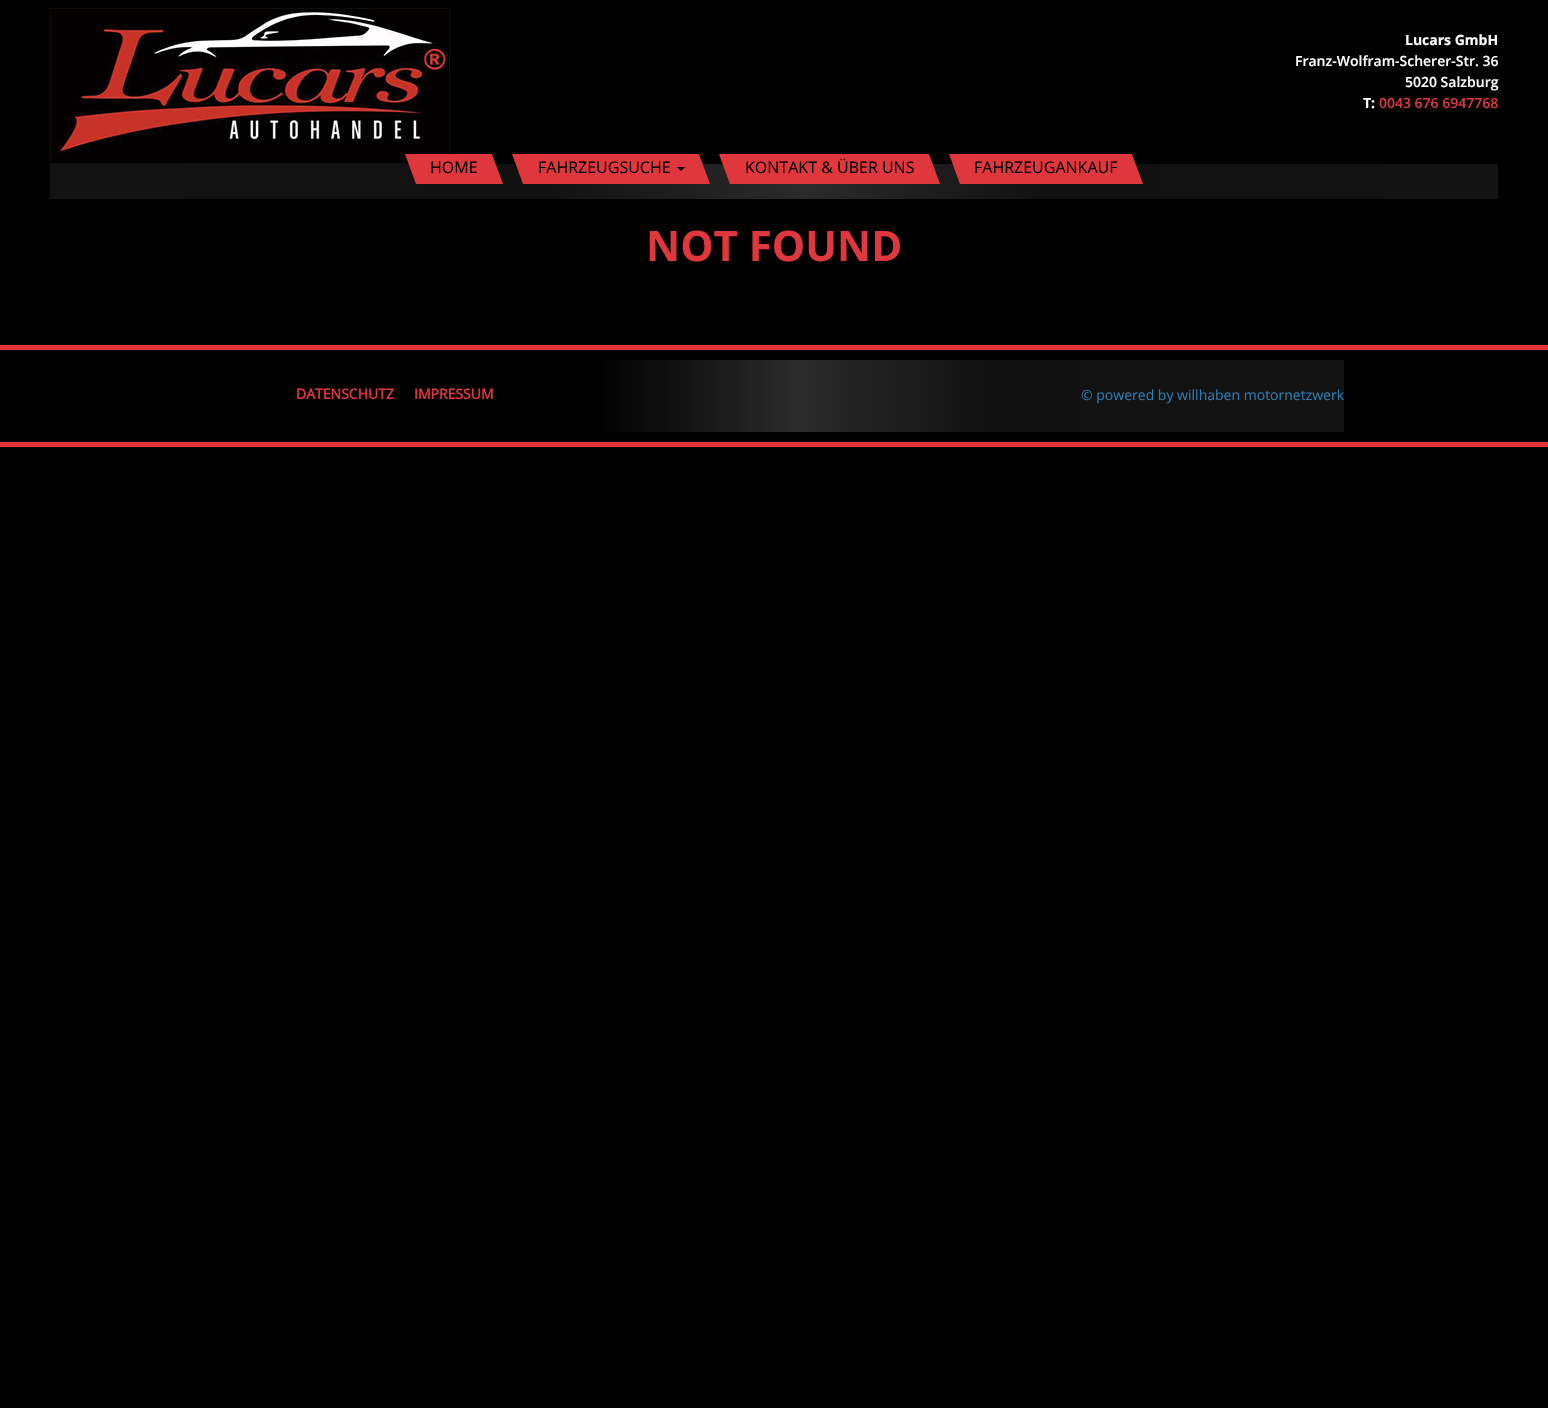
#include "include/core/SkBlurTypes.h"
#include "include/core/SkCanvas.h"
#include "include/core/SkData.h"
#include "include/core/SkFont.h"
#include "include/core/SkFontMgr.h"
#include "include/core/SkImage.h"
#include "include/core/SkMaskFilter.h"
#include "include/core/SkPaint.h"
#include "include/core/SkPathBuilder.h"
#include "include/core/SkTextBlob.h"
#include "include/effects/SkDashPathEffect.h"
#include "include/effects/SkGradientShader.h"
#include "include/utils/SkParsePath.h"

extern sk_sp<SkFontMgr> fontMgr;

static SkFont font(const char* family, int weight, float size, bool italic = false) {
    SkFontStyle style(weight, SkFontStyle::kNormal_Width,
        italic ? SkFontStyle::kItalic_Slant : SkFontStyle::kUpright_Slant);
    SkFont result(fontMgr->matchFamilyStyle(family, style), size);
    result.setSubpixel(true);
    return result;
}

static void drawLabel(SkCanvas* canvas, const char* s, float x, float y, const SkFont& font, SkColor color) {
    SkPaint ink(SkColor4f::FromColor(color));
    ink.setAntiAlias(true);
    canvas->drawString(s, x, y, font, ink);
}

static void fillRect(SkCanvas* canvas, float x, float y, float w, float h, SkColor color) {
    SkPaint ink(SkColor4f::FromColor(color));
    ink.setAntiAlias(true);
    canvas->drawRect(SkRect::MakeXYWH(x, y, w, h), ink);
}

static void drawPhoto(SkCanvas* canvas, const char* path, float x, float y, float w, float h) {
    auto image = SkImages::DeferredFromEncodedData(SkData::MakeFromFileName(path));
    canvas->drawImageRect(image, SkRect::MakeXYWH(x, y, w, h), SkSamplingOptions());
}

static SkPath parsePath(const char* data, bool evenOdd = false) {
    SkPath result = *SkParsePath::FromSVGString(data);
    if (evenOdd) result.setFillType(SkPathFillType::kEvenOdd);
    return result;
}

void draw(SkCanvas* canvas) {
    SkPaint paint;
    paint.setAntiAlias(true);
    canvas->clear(0xFF000000);
    drawPhoto(canvas, "assets/img1.png", 50, 8, 400, 156);
    SkFont font1 = font("Open Sans", 700, 14);
    drawLabel(canvas, "Lucars GmbH", 1405, 45, font1, 0xFFFFFFFF);
    SkFont font2 = font("Open Sans", 600, 14);
    drawLabel(canvas, "Franz-Wolfram-Scherer-Str. 36", 1295, 66, font2, 0xFFFFFFFF);
    drawLabel(canvas, "5020 Salzburg", 1405, 87, font2, 0xFFFFFFFF);
    drawLabel(canvas, "T:", 1363, 108, font1, 0xFFFFFFFF);
    drawLabel(canvas, "0043 676 6947768", 1379, 108, font2, 0xFFDF373C);
    {
        const SkColor colors[] = {0xFF131313, 0xFF111111, 0xFF2B2B2B, 0xFF111111, 0xFF131313};
        const float stops[] = {0.01f, 0.34f, 0.52f, 0.69f, 1};
        const SkPoint ends[] = {{50, 182}, {1498, 181}};
        paint.setShader(SkGradientShader::MakeLinear(ends, colors, stops, 5, SkTileMode::kClamp));
        paint.setAlpha(255);
    }
    canvas->drawRect(SkRect::MakeXYWH(50, 164, 1448, 35), paint);
    paint.setShader(nullptr);
    paint.setColor(0xFFDF373C);
    canvas->drawPath(parsePath("M405 154H492L503 184H416Z"), paint);
    SkFont font3 = font("Open Sans", 400, 16);
    drawLabel(canvas, "HOME", 430, 173, font3, 0xFF000000);
    canvas->drawPath(parsePath("M512 154H699L710 184H523Z"), paint);
    drawLabel(canvas, "FAHRZEUGSUCHE", 538, 173, font3, 0xFF000000);
    paint.setColor(0xFF000000);
    canvas->drawPath(parsePath("M677 167H685L681 171Z"), paint);
    paint.setColor(0xFFDF373C);
    canvas->drawPath(parsePath("M719 154H929L940 184H730Z"), paint);
    drawLabel(canvas, "KONTAKT & ÜBER UNS", 745, 173, font3, 0xFF000000);
    canvas->drawPath(parsePath("M949 154H1132L1143 184H960Z"), paint);
    drawLabel(canvas, "FAHRZEUGANKAUF", 974, 173, font3, 0xFF000000);
    SkFont font4 = font("Open Sans", 700, 42);
    drawLabel(canvas, "NOT FOUND", 646, 261, font4, 0xFFDF373C);
    fillRect(canvas, 0, 345, 1548, 5, 0xFFDF373C);
    fillRect(canvas, 0, 442, 1548, 5, 0xFFDF373C);
    {
        const SkColor colors[] = {0xFF000000, 0xFF000000, 0xFF2B2B2B, 0xFF111111, 0xFF131313};
        const float stops[] = {0.01f, 0.34f, 0.52f, 0.69f, 1};
        const SkPoint ends[] = {{204, 396}, {1344, 396}};
        paint.setShader(SkGradientShader::MakeLinear(ends, colors, stops, 5, SkTileMode::kClamp));
        paint.setAlpha(255);
    }
    canvas->drawRect(SkRect::MakeXYWH(604, 360, 740, 72), paint);
    SkFont font5 = font("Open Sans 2", 700, 14);
    drawLabel(canvas, "DATENSCHUTZ", 296, 399, font5, 0xFFDF373C);
    drawLabel(canvas, "IMPRESSUM", 414, 399, font5, 0xFFDF373C);
    SkFont font6 = font("Open Sans", 400, 14);
    drawLabel(canvas, "© powered by willhaben motornetzwerk", 1081, 400, font6, 0xFF2E7BB0);
}
